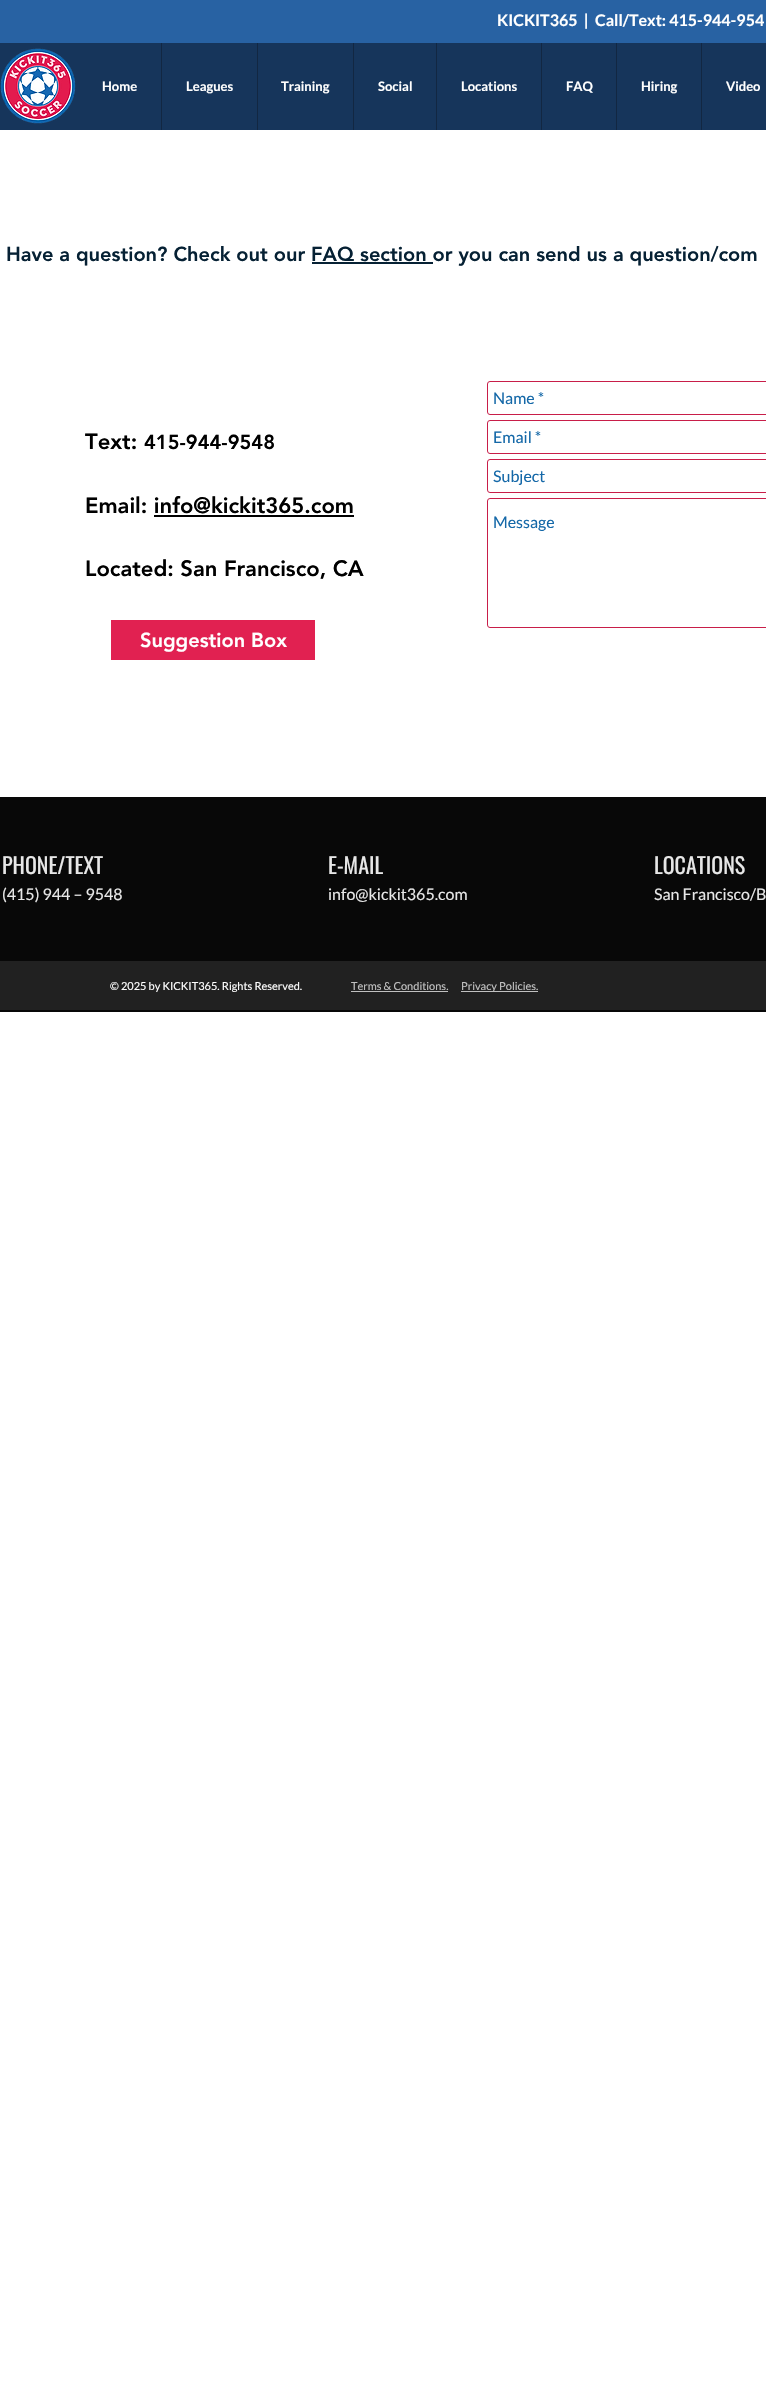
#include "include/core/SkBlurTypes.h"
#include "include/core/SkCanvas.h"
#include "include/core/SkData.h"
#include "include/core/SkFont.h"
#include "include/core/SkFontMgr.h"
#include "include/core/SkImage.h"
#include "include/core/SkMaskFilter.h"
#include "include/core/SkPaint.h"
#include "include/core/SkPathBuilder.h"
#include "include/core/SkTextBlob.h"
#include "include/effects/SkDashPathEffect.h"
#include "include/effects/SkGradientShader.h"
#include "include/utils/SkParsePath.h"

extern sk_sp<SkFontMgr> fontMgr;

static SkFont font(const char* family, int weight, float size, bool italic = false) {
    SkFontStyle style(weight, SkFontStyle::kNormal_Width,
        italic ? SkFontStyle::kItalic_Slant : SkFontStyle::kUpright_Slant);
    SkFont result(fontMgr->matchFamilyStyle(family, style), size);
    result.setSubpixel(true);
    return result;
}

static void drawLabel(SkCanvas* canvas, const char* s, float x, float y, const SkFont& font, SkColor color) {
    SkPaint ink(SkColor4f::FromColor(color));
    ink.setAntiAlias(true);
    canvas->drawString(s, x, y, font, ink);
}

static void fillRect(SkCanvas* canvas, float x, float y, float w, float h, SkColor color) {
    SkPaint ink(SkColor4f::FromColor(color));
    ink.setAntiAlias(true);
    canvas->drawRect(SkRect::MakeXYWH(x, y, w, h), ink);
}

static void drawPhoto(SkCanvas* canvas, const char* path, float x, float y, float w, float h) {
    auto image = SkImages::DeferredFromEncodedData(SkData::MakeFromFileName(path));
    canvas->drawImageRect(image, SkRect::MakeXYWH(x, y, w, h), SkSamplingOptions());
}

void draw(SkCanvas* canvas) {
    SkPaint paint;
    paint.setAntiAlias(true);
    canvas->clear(0xFFFFFFFF);
    fillRect(canvas, 0, 0, 766, 43, 0xFF2862A3);
    SkFont font1 = font("Lato", 700, 16);
    drawLabel(canvas, "KICKIT365  |", 497, 26, font1, 0xFFFFFFFF);
    drawLabel(canvas, "Call/Text: 415-944-954", 595, 26, font1, 0xFFFFFFFF);
    fillRect(canvas, 0, 43, 766, 87, 0xFF16355B);
    drawPhoto(canvas, "assets/img1.png", 0, 48, 76, 76);
    SkFont font2 = font("Lato", 700, 13);
    drawLabel(canvas, "Home", 102, 91, font2, 0xFFFFFFFF);
    fillRect(canvas, 161, 43, 1, 87, 0xFF122742);
    drawLabel(canvas, "Leagues", 186, 91, font2, 0xFFFFFFFF);
    fillRect(canvas, 257, 43, 1, 87, 0xFF122742);
    drawLabel(canvas, "Training", 281, 91, font2, 0xFFFFFFFF);
    fillRect(canvas, 353, 43, 1, 87, 0xFF122742);
    drawLabel(canvas, "Social", 378, 91, font2, 0xFFFFFFFF);
    fillRect(canvas, 436, 43, 1, 87, 0xFF122742);
    drawLabel(canvas, "Locations", 461, 91, font2, 0xFFFFFFFF);
    fillRect(canvas, 541, 43, 1, 87, 0xFF122742);
    drawLabel(canvas, "FAQ", 566, 91, font2, 0xFFFFFFFF);
    fillRect(canvas, 616, 43, 1, 87, 0xFF122742);
    drawLabel(canvas, "Hiring", 641, 91, font2, 0xFFFFFFFF);
    fillRect(canvas, 701, 43, 1, 87, 0xFF122742);
    drawLabel(canvas, "Video", 726, 91, font2, 0xFFFFFFFF);
    SkFont font3 = font("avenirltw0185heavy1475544", 900, 20);
    drawLabel(canvas, "Have a question? Check out our FAQ section or you can send us a question/com", 6, 261, font3, 0xFF062134);
    fillRect(canvas, 312, 262, 121, 2, 0xFF062134);
    SkFont font4 = font("avenirltw0185heavy1475544", 900, 22);
    drawLabel(canvas, "Text:", 85, 449, font4, 0xFF000000);
    drawLabel(canvas, "415-944-9548", 144, 449, font3, 0xFF000000);
    drawLabel(canvas, "Email: info@kickit365.com", 85, 513, font4, 0xFF000000);
    fillRect(canvas, 154, 515, 200, 2, 0xFF000000);
    drawLabel(canvas, "Located: San Francisco, CA", 85, 576, font4, 0xFF000000);
    fillRect(canvas, 111, 620, 204, 40, 0xFFE12151);
    drawLabel(canvas, "Suggestion Box", 140, 647, font3, 0xFFFFFFFF);
    paint.setStroke(true);
    paint.setStrokeWidth(1);
    paint.setColor(0xFFC81E49);
    canvas->drawRoundRect(SkRect::MakeXYWH(487.5f, 381.5f, 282, 33), 2.5f, 2.5f, paint);
    SkFont font5 = font("Lato", 400, 16);
    drawLabel(canvas, "Name *", 493, 404, font5, 0xFF1468A8);
    canvas->drawRoundRect(SkRect::MakeXYWH(487.5f, 420.5f, 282, 33), 2.5f, 2.5f, paint);
    drawLabel(canvas, "Email *", 493, 443, font5, 0xFF1468A8);
    canvas->drawRoundRect(SkRect::MakeXYWH(487.5f, 459.5f, 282, 33), 2.5f, 2.5f, paint);
    drawLabel(canvas, "Subject", 493, 482, font5, 0xFF1468A8);
    canvas->drawRoundRect(SkRect::MakeXYWH(487.5f, 498.5f, 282, 129), 2.5f, 2.5f, paint);
    drawLabel(canvas, "Message", 493, 528, font5, 0xFF1468A8);
    fillRect(canvas, 0, 797, 766, 215, 0xFF080808);
    SkFont font6 = font("Oswald", 400, 22);
    drawLabel(canvas, "PHONE/TEXT", 2, 874, font6, 0xFFE7E7E7);
    drawLabel(canvas, "(415) 944 – 9548", 2, 900, font5, 0xFFE7E7E7);
    drawLabel(canvas, "E-MAIL", 328, 874, font6, 0xFFE7E7E7);
    drawLabel(canvas, "info@kickit365.com", 328, 900, font5, 0xFFE7E7E7);
    drawLabel(canvas, "LOCATIONS", 654, 874, font6, 0xFFE7E7E7);
    drawLabel(canvas, "San Francisco/B", 654, 900, font5, 0xFFE7E7E7);
    fillRect(canvas, 0, 961, 766, 49, 0xFF212121);
    SkFont font7 = font("Lato", 400, 11);
    drawLabel(canvas, "© 2025 by KICKIT365. Rights Reserved.", 110, 990, font7, 0xFFFFFFFF);
    drawLabel(canvas, "Terms & Conditions.", 351, 990, font7, 0xFFC1C1C1);
    fillRect(canvas, 351, 991, 97, 1, 0xFFC1C1C1);
    fillRect(canvas, 461, 991, 77, 1, 0xFFC1C1C1);
    drawLabel(canvas, "Privacy Policies.", 461, 990, font7, 0xFFC1C1C1);
}
